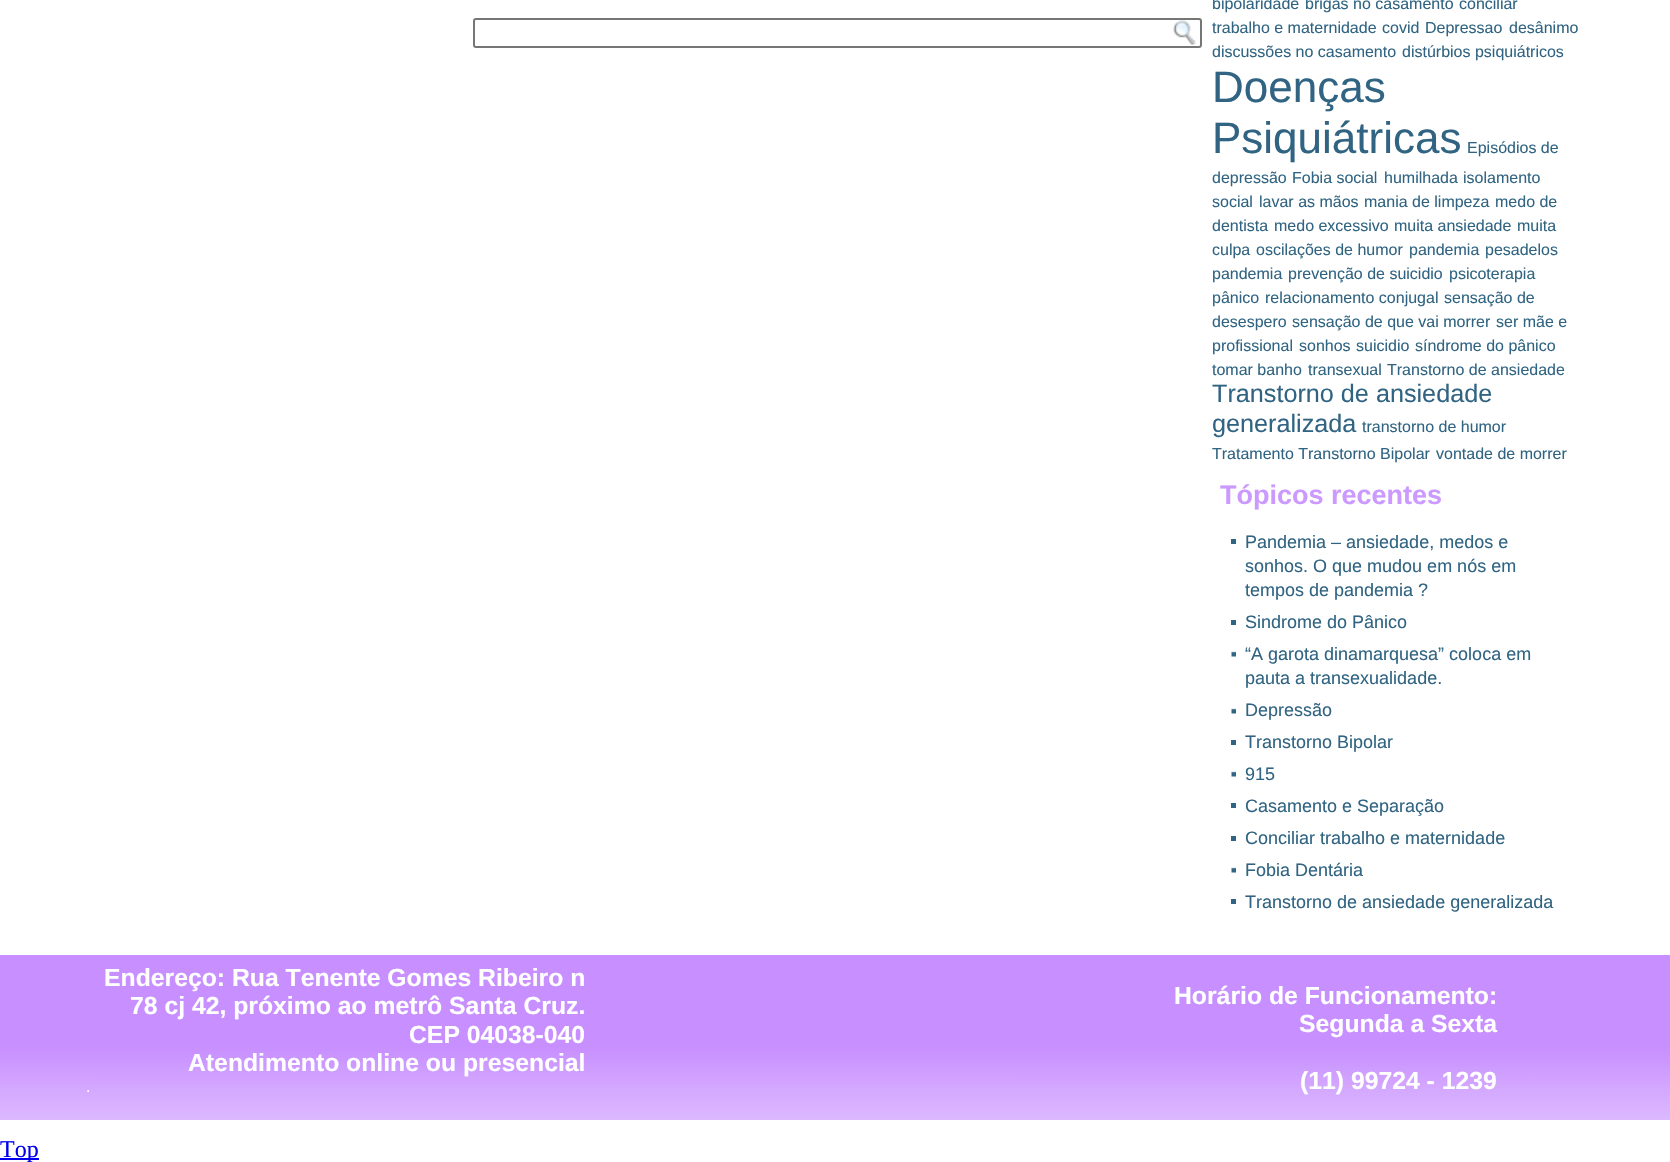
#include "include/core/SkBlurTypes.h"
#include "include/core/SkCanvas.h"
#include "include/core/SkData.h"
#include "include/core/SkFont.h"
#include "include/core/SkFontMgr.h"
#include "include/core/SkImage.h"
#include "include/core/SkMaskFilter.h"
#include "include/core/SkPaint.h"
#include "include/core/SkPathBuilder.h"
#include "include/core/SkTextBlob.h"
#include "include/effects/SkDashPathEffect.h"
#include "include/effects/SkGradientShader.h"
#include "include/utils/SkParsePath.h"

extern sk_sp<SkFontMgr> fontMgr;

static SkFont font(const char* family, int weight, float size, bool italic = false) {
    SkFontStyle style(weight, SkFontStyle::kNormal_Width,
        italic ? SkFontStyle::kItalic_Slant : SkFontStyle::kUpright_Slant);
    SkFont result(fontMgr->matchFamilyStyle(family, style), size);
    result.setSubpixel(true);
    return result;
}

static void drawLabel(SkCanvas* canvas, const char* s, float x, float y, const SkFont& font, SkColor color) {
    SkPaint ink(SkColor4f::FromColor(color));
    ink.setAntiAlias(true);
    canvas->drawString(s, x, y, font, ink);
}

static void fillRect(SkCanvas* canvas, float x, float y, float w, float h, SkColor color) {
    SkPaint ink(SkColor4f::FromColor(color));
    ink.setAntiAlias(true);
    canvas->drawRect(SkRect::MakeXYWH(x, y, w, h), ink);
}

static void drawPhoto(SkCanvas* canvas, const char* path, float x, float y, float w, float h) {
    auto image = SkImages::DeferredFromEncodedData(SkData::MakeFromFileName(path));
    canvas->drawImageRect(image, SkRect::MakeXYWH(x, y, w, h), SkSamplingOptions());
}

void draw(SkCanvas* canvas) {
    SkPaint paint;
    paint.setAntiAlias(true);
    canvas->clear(0xFFFFFFFF);
    paint.setStroke(true);
    paint.setStrokeWidth(2);
    paint.setColor(0xFF767676);
    canvas->drawRoundRect(SkRect::MakeXYWH(474, 19, 727, 28), 2, 2, paint);
    drawPhoto(canvas, "assets/img1.png", 1173, 20, 23, 25);
    SkFont font1 = font("Liberation Sans", 400, 16);
    drawLabel(canvas, "bipolaridade", 1212, 9, font1, 0xFF306482);
    drawLabel(canvas, "brigas no casamento", 1305, 9, font1, 0xFF306482);
    drawLabel(canvas, "conciliar", 1459, 9, font1, 0xFF306482);
    drawLabel(canvas, "trabalho e maternidade", 1212, 33, font1, 0xFF306482);
    drawLabel(canvas, "covid", 1382, 33, font1, 0xFF306482);
    drawLabel(canvas, "Depressao", 1425, 33, font1, 0xFF306482);
    drawLabel(canvas, "desânimo", 1509, 33, font1, 0xFF306482);
    drawLabel(canvas, "discussões no casamento", 1212, 57, font1, 0xFF306482);
    drawLabel(canvas, "distúrbios psiquiátricos", 1402, 57, font1, 0xFF306482);
    SkFont font2 = font("Liberation Sans", 400, 44);
    drawLabel(canvas, "Doenças", 1212, 102, font2, 0xFF306482);
    drawLabel(canvas, "Psiquiátricas", 1212, 153, font2, 0xFF306482);
    drawLabel(canvas, "Episódios de", 1467, 153, font1, 0xFF306482);
    drawLabel(canvas, "depressão", 1212, 183, font1, 0xFF306482);
    drawLabel(canvas, "Fobia social", 1292, 183, font1, 0xFF306482);
    drawLabel(canvas, "humilhada", 1384, 183, font1, 0xFF306482);
    drawLabel(canvas, "isolamento", 1463, 183, font1, 0xFF306482);
    drawLabel(canvas, "social", 1212, 207, font1, 0xFF306482);
    drawLabel(canvas, "lavar as mãos", 1259, 207, font1, 0xFF306482);
    drawLabel(canvas, "mania de limpeza", 1364, 207, font1, 0xFF306482);
    drawLabel(canvas, "medo de", 1495, 207, font1, 0xFF306482);
    drawLabel(canvas, "dentista", 1212, 231, font1, 0xFF306482);
    drawLabel(canvas, "medo excessivo", 1274, 231, font1, 0xFF306482);
    drawLabel(canvas, "muita ansiedade", 1394, 231, font1, 0xFF306482);
    drawLabel(canvas, "muita", 1517, 231, font1, 0xFF306482);
    drawLabel(canvas, "culpa", 1212, 255, font1, 0xFF306482);
    drawLabel(canvas, "oscilações de humor", 1256, 255, font1, 0xFF306482);
    drawLabel(canvas, "pandemia", 1409, 255, font1, 0xFF306482);
    drawLabel(canvas, "pesadelos", 1485, 255, font1, 0xFF306482);
    drawLabel(canvas, "pandemia", 1212, 279, font1, 0xFF306482);
    drawLabel(canvas, "prevenção de suicidio", 1288, 279, font1, 0xFF306482);
    drawLabel(canvas, "psicoterapia", 1449, 279, font1, 0xFF306482);
    drawLabel(canvas, "pânico", 1212, 303, font1, 0xFF306482);
    drawLabel(canvas, "relacionamento conjugal", 1265, 303, font1, 0xFF306482);
    drawLabel(canvas, "sensação de", 1444, 303, font1, 0xFF306482);
    drawLabel(canvas, "desespero", 1212, 327, font1, 0xFF306482);
    drawLabel(canvas, "sensação de que vai morrer", 1292, 327, font1, 0xFF306482);
    drawLabel(canvas, "ser mãe e", 1496, 327, font1, 0xFF306482);
    drawLabel(canvas, "profissional", 1212, 351, font1, 0xFF306482);
    drawLabel(canvas, "sonhos", 1299, 351, font1, 0xFF306482);
    drawLabel(canvas, "suicidio", 1356, 351, font1, 0xFF306482);
    drawLabel(canvas, "síndrome do pânico", 1415, 351, font1, 0xFF306482);
    drawLabel(canvas, "tomar banho", 1212, 375, font1, 0xFF306482);
    drawLabel(canvas, "transexual", 1308, 375, font1, 0xFF306482);
    drawLabel(canvas, "Transtorno de ansiedade", 1387, 375, font1, 0xFF306482);
    SkFont font3 = font("Liberation Sans", 400, 25.2f);
    drawLabel(canvas, "Transtorno de ansiedade", 1212, 402, font3, 0xFF306482);
    drawLabel(canvas, "generalizada", 1212, 432, font3, 0xFF306482);
    drawLabel(canvas, "transtorno de humor", 1362, 432, font1, 0xFF306482);
    drawLabel(canvas, "Tratamento Transtorno Bipolar", 1212, 459, font1, 0xFF306482);
    drawLabel(canvas, "vontade de morrer", 1436, 459, font1, 0xFF306482);
    SkFont font4 = font("Liberation Sans", 700, 27);
    drawLabel(canvas, "Tópicos recentes", 1220, 504, font4, 0xFFCC99FF);
    fillRect(canvas, 1231, 539, 5, 5, 0xFF306482);
    SkFont font5 = font("Liberation Sans", 400, 18);
    drawLabel(canvas, "Pandemia – ansiedade, medos e", 1245, 548, font5, 0xFF306482);
    drawLabel(canvas, "sonhos. O que mudou em nós em", 1245, 572, font5, 0xFF306482);
    drawLabel(canvas, "tempos de pandemia ?", 1245, 596, font5, 0xFF306482);
    fillRect(canvas, 1231, 620, 5, 5, 0xFF306482);
    drawLabel(canvas, "Sindrome do Pânico", 1245, 628, font5, 0xFF306482);
    drawPhoto(canvas, "assets/img2.png", 1231, 651, 5, 6);
    drawLabel(canvas, "“A garota dinamarquesa” coloca em", 1245, 660, font5, 0xFF306482);
    drawLabel(canvas, "pauta a transexualidade.", 1245, 684, font5, 0xFF306482);
    drawPhoto(canvas, "assets/img2.png", 1231, 708, 5, 6);
    drawLabel(canvas, "Depressão", 1245, 716, font5, 0xFF306482);
    fillRect(canvas, 1231, 740, 5, 5, 0xFF306482);
    drawLabel(canvas, "Transtorno Bipolar", 1245, 748, font5, 0xFF306482);
    drawPhoto(canvas, "assets/img2.png", 1231, 771, 5, 6);
    drawLabel(canvas, "915", 1245, 780, font5, 0xFF306482);
    fillRect(canvas, 1231, 803, 5, 5, 0xFF306482);
    drawLabel(canvas, "Casamento e Separação", 1245, 812, font5, 0xFF306482);
    fillRect(canvas, 1231, 836, 5, 5, 0xFF306482);
    drawLabel(canvas, "Conciliar trabalho e maternidade", 1245, 844, font5, 0xFF306482);
    drawPhoto(canvas, "assets/img2.png", 1231, 867, 5, 6);
    drawLabel(canvas, "Fobia Dentária", 1245, 876, font5, 0xFF306482);
    fillRect(canvas, 1231, 899, 5, 5, 0xFF306482);
    drawLabel(canvas, "Transtorno de ansiedade generalizada", 1245, 908, font5, 0xFF306482);
    fillRect(canvas, 0, 955, 1670, 90, 0xFFC78FFF);
    SkFont font6 = font("Liberation Sans", 700, 24.75f);
    drawLabel(canvas, "Endereço: Rua Tenente Gomes Ribeiro n", 104, 986, font6, 0xFFFFFFFF);
    drawLabel(canvas, "78 cj 42, próximo ao metrô Santa Cruz.", 130, 1014, font6, 0xFFFFFFFF);
    drawLabel(canvas, "CEP 04038-040", 409, 1043, font6, 0xFFFFFFFF);
    drawPhoto(canvas, "assets/img3.png", 0, 1045, 1670, 75);
    drawLabel(canvas, "Atendimento online ou presencial", 188, 1071, font6, 0xFFFFFFFF);
    drawLabel(canvas, ".", 86, 1092, font1, 0xFFFFFFFF);
    drawLabel(canvas, "Horário de Funcionamento:", 1174, 1004, font6, 0xFFFFFFFF);
    drawLabel(canvas, "Segunda a Sexta", 1299, 1032, font6, 0xFFFFFFFF);
    drawLabel(canvas, "(11) 99724 - 1239", 1300, 1089, font6, 0xFFFFFFFF);
    fillRect(canvas, 0, 1158, 39, 2, 0xFF0000EE);
    SkFont font7 = font("Liberation Serif", 400, 24);
    drawLabel(canvas, "Top", 0, 1157, font7, 0xFF0000EE);
}
